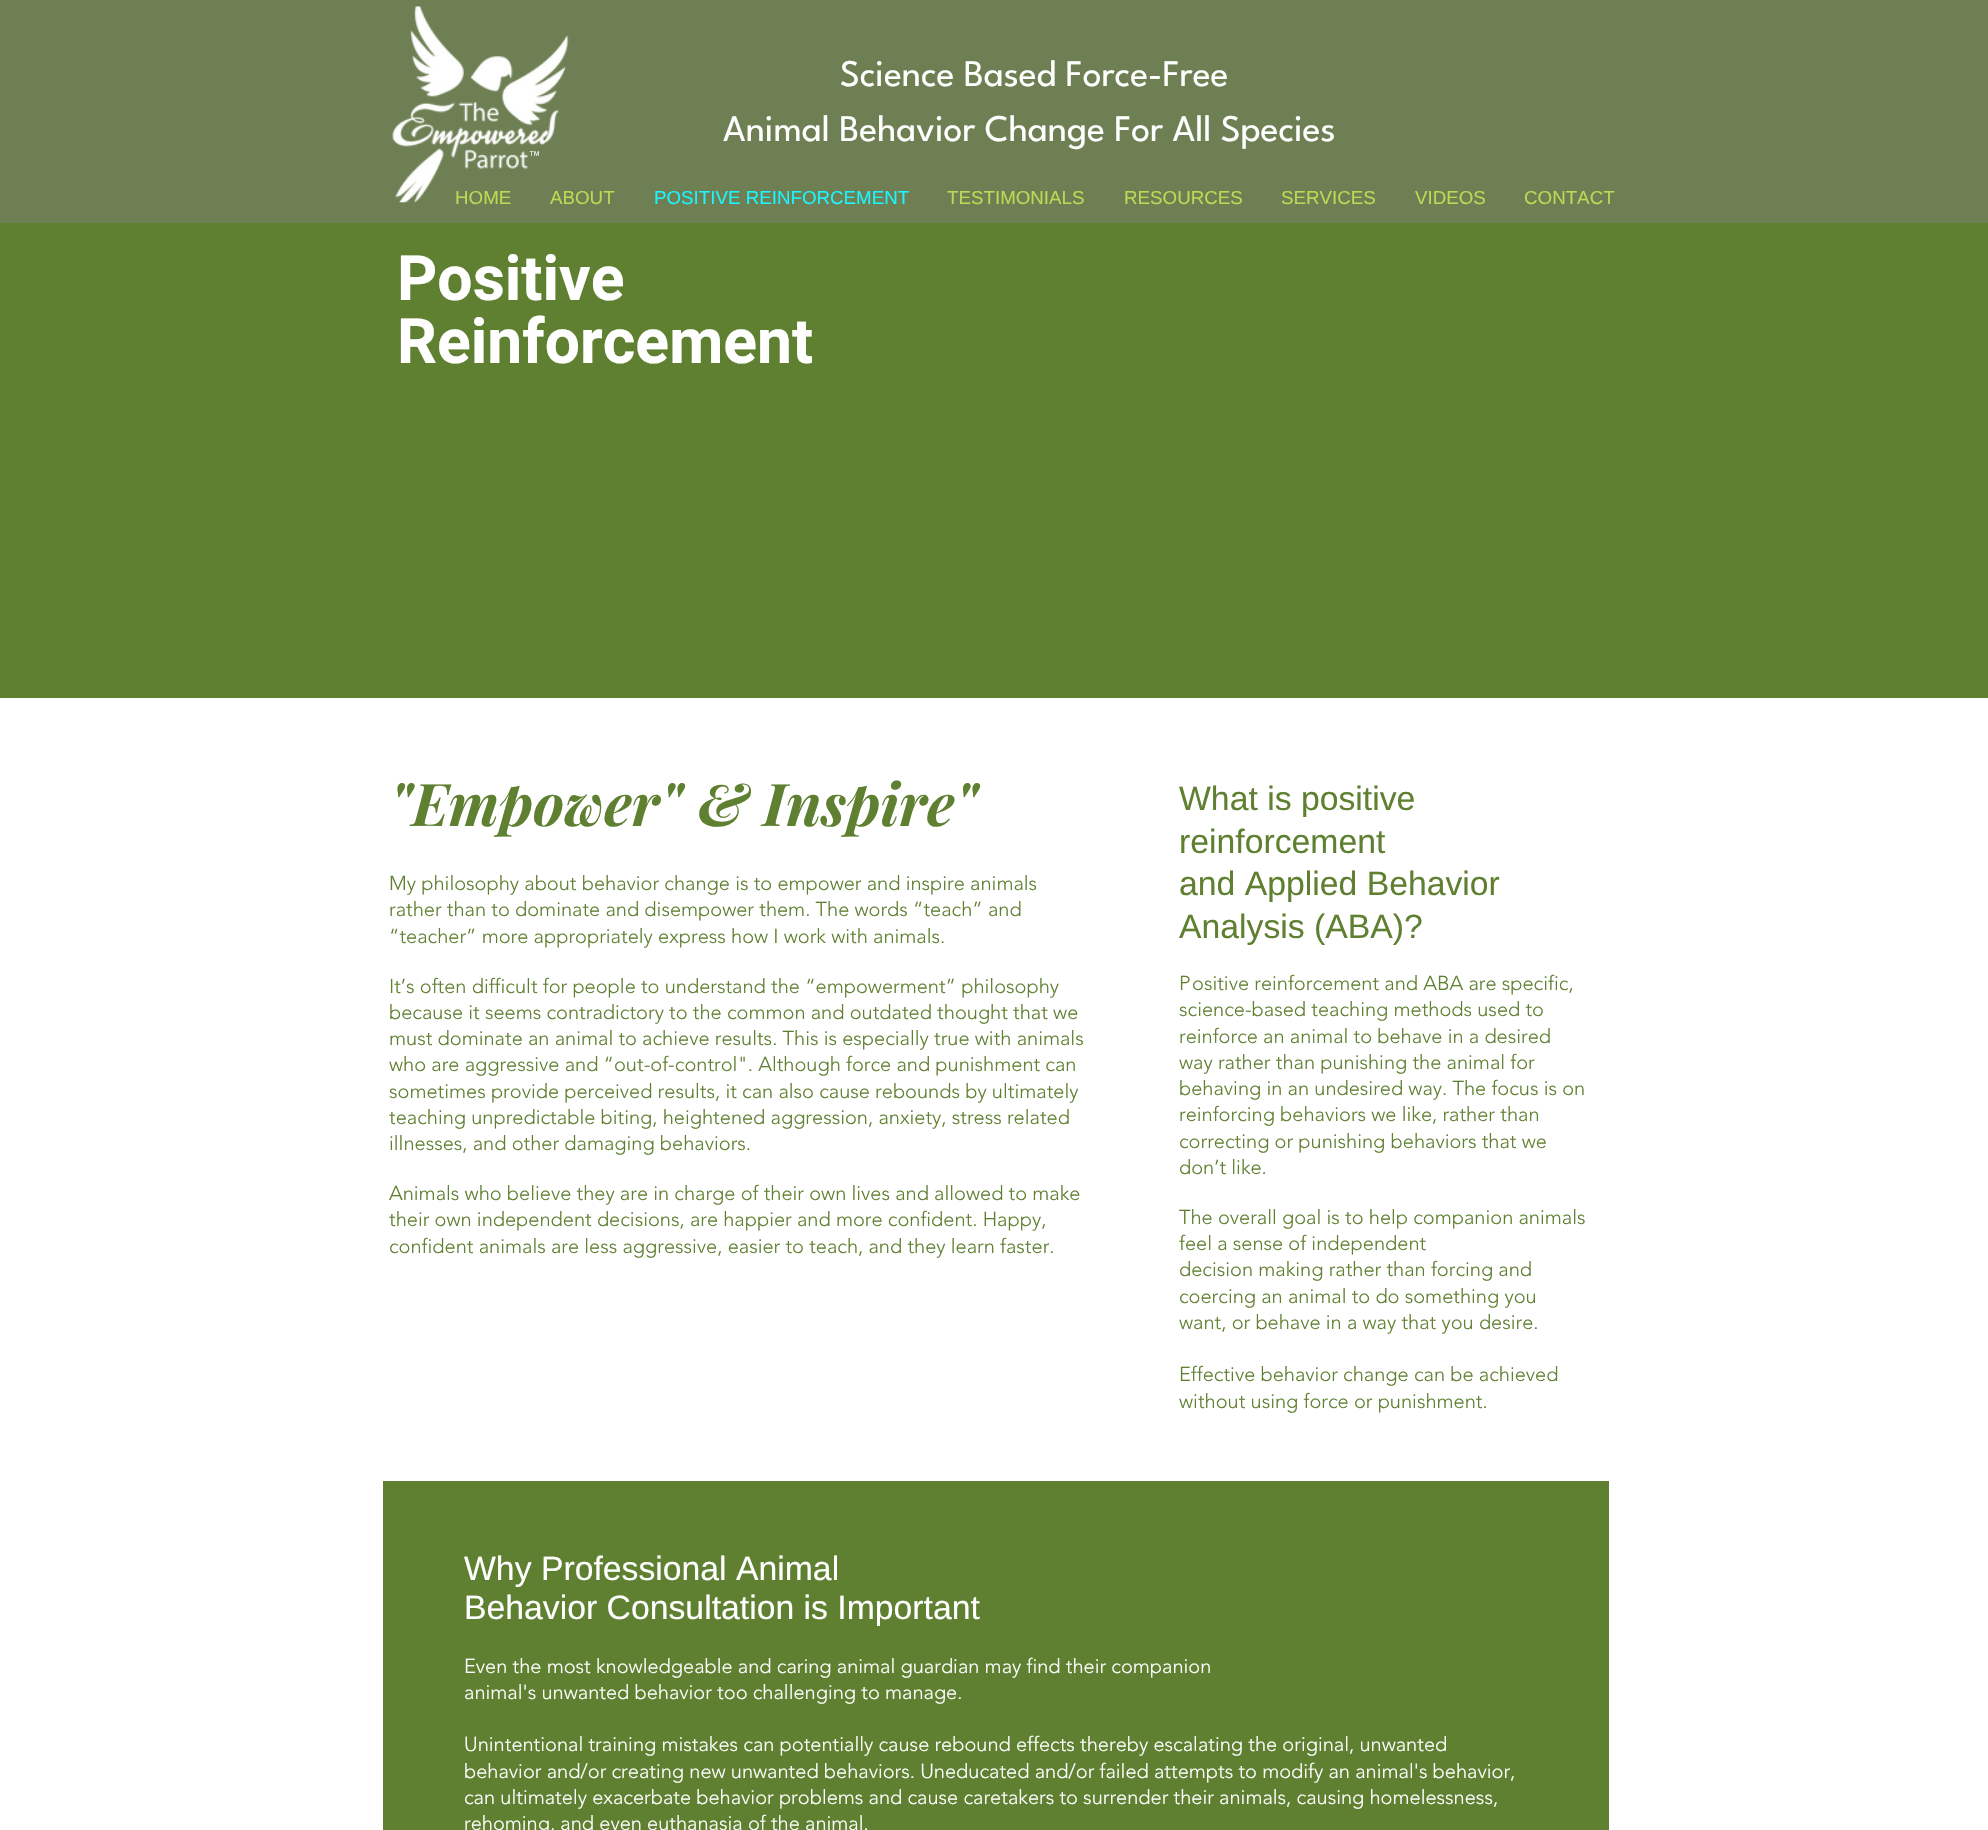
#include "include/core/SkBlurTypes.h"
#include "include/core/SkCanvas.h"
#include "include/core/SkData.h"
#include "include/core/SkFont.h"
#include "include/core/SkFontMgr.h"
#include "include/core/SkImage.h"
#include "include/core/SkMaskFilter.h"
#include "include/core/SkPaint.h"
#include "include/core/SkPathBuilder.h"
#include "include/core/SkTextBlob.h"
#include "include/effects/SkDashPathEffect.h"
#include "include/effects/SkGradientShader.h"
#include "include/utils/SkParsePath.h"

extern sk_sp<SkFontMgr> fontMgr;

static SkFont font(const char* family, int weight, float size, bool italic = false) {
    SkFontStyle style(weight, SkFontStyle::kNormal_Width,
        italic ? SkFontStyle::kItalic_Slant : SkFontStyle::kUpright_Slant);
    SkFont result(fontMgr->matchFamilyStyle(family, style), size);
    result.setSubpixel(true);
    return result;
}

static void drawLabel(SkCanvas* canvas, const char* s, float x, float y, const SkFont& font, SkColor color) {
    SkPaint ink(SkColor4f::FromColor(color));
    ink.setAntiAlias(true);
    canvas->drawString(s, x, y, font, ink);
}

static void drawTracked(SkCanvas* canvas, const char* s, float x, float y, const SkFont& font, const SkPaint& ink, float letter, float word) {
    std::vector<SkGlyphID> glyphs(font.countText(s, strlen(s), SkTextEncoding::kUTF8));
    std::vector<float> xs(glyphs.size());
    font.textToGlyphs(s, strlen(s), SkTextEncoding::kUTF8, glyphs);
    font.getXPos(glyphs, xs, x);
    float extra = 0;
    for (size_t i = 0; i < glyphs.size(); i++) {
        xs[i] += extra;
        extra += letter + word * (glyphs[i] == font.unicharToGlyph(' '));
    }
    canvas->drawTextBlob(SkTextBlob::MakeFromPosHGlyphs(glyphs, xs, y, font), 0, 0, ink);
}

static void fillRect(SkCanvas* canvas, float x, float y, float w, float h, SkColor color) {
    SkPaint ink(SkColor4f::FromColor(color));
    ink.setAntiAlias(true);
    canvas->drawRect(SkRect::MakeXYWH(x, y, w, h), ink);
}

static void drawPhoto(SkCanvas* canvas, const char* path, float x, float y, float w, float h) {
    auto image = SkImages::DeferredFromEncodedData(SkData::MakeFromFileName(path));
    canvas->drawImageRect(image, SkRect::MakeXYWH(x, y, w, h), SkSamplingOptions());
}

void draw(SkCanvas* canvas) {
    SkPaint paint;
    paint.setAntiAlias(true);
    canvas->clear(0xFFFFFFFF);
    fillRect(canvas, 0, 0, 1988, 223, 0xFF6D7F53);
    SkFont font1 = font("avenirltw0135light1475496", 300, 11);
    drawLabel(canvas, "™", 529, 159, font1, 0xFFFFFFFF);
    drawPhoto(canvas, "assets/img1.png", 392, 6, 177, 197);
    SkFont font2 = font("League Spartan", 400, 37.5f);
    drawLabel(canvas, "Science Based Force-Free", 840, 86, font2, 0xFFFFFFFF);
    drawLabel(canvas, "Animal Behavior Change For All Species", 723, 141, font2, 0xFFFFFFFF);
    SkFont font3 = font("Liberation Sans", 400, 18.75f);
    drawLabel(canvas, "HOME", 455, 204, font3, 0xFFBADA55);
    drawLabel(canvas, "ABOUT", 550, 204, font3, 0xFFBADA55);
    drawLabel(canvas, "POSITIVE REINFORCEMENT", 654, 204, font3, 0xFF1DF4FF);
    drawLabel(canvas, "TESTIMONIALS", 947, 204, font3, 0xFFBADA55);
    drawLabel(canvas, "RESOURCES", 1124, 204, font3, 0xFFBADA55);
    drawLabel(canvas, "SERVICES", 1281, 204, font3, 0xFFBADA55);
    drawLabel(canvas, "VIDEOS", 1415, 204, font3, 0xFFBADA55);
    drawLabel(canvas, "CONTACT", 1524, 204, font3, 0xFFBADA55);
    fillRect(canvas, 0, 223, 1988, 475, 0xFF5F8031);
    SkFont font4 = font("Roboto", 700, 62.5f);
    drawLabel(canvas, "Positive", 397, 300, font4, 0xFFFFFFFF);
    drawLabel(canvas, "Reinforcement", 397, 363, font4, 0xFFFFFFFF);
    SkFont font5 = font("Playfair Display", 700, 58.75f, true);
    drawLabel(canvas, "\"Empower\" & Inspire\"", 389, 826, font5, 0xFF5F8031);
    SkFont font6 = font("avenirltw0135light1475496", 300, 20);
    drawLabel(canvas, "My philosophy about behavior change is to empower and inspire animals", 389, 890, font6, 0xFF5F8031);
    drawLabel(canvas, "rather than to dominate and disempower them. The words “teach” and", 389, 916, font6, 0xFF5F8031);
    drawLabel(canvas, "“teacher” more appropriately express how I work with animals.", 389, 943, font6, 0xFF5F8031);
    drawLabel(canvas, "It’s often difficult for people to understand the “empowerment” philosophy", 389, 993, font6, 0xFF5F8031);
    drawLabel(canvas, "because it seems contradictory to the common and outdated thought that we", 389, 1019, font6, 0xFF5F8031);
    drawLabel(canvas, "must dominate an animal to achieve results. This is especially true with animals", 389, 1045, font6, 0xFF5F8031);
    drawLabel(canvas, "who are aggressive and “out-of-control\". Although force and punishment can", 389, 1071, font6, 0xFF5F8031);
    drawLabel(canvas, "sometimes provide perceived results, it can also cause rebounds by ultimately", 389, 1098, font6, 0xFF5F8031);
    drawLabel(canvas, "teaching unpredictable biting, heightened aggression, anxiety, stress related", 389, 1124, font6, 0xFF5F8031);
    drawLabel(canvas, "illnesses, and other damaging behaviors.", 389, 1150, font6, 0xFF5F8031);
    drawLabel(canvas, "Animals who believe they are in charge of their own lives and allowed to make", 389, 1200, font6, 0xFF5F8031);
    drawLabel(canvas, "their own independent decisions, are happier and more confident. Happy,", 389, 1226, font6, 0xFF5F8031);
    drawLabel(canvas, "confident animals are less aggressive, easier to teach, and they learn faster.", 389, 1253, font6, 0xFF5F8031);
    SkFont font7 = font("Liberation Sans", 400, 33.75f);
    drawLabel(canvas, "What is positive", 1179, 810, font7, 0xFF5F8031);
    drawLabel(canvas, "reinforcement", 1179, 853, font7, 0xFF5F8031);
    drawLabel(canvas, "and Applied Behavior", 1179, 895, font7, 0xFF5F8031);
    drawLabel(canvas, "Analysis (ABA)?", 1179, 938, font7, 0xFF5F8031);
    paint.setColor(0xFF5F8031);
    drawTracked(canvas, "P", 1179, 990, font6, paint, 1, 0);
    drawLabel(canvas, "ositive reinforcement and ABA are specific,", 1192, 990, font6, 0xFF5F8031);
    drawLabel(canvas, "science-based teaching methods used to", 1179, 1016, font6, 0xFF5F8031);
    drawLabel(canvas, "reinforce an animal to behave in a desired", 1179, 1043, font6, 0xFF5F8031);
    drawLabel(canvas, "way rather than punishing the animal for", 1179, 1069, font6, 0xFF5F8031);
    drawLabel(canvas, "behaving in an undesired way. The focus is on", 1179, 1095, font6, 0xFF5F8031);
    drawLabel(canvas, "reinforcing behaviors we like, rather than", 1179, 1121, font6, 0xFF5F8031);
    drawLabel(canvas, "correcting or punishing behaviors that we", 1179, 1148, font6, 0xFF5F8031);
    drawLabel(canvas, "don’t like.", 1179, 1174, font6, 0xFF5F8031);
    drawLabel(canvas, "The overall goal is to help companion animals", 1179, 1224, font6, 0xFF5F8031);
    drawLabel(canvas, "feel a sense of independent", 1179, 1250, font6, 0xFF5F8031);
    drawLabel(canvas, "decision making rather than forcing and", 1179, 1276, font6, 0xFF5F8031);
    drawLabel(canvas, "coercing an animal to do something you", 1179, 1303, font6, 0xFF5F8031);
    drawLabel(canvas, "want, or behave in a way that you desire.", 1179, 1329, font6, 0xFF5F8031);
    drawLabel(canvas, "Effective behavior change can be achieved", 1179, 1381, font6, 0xFF5F8031);
    drawLabel(canvas, "without using force or punishment.", 1179, 1408, font6, 0xFF5F8031);
    fillRect(canvas, 383, 1481, 1226, 349, 0xFF5F8031);
    drawLabel(canvas, "Why Professional Animal", 464, 1580, font7, 0xFFFFFFFF);
    drawLabel(canvas, "Behavior Consultation is Important", 464, 1619, font7, 0xFFFFFFFF);
    drawLabel(canvas, "Even the most knowledgeable and caring animal guardian may find their companion", 464, 1673, font6, 0xFFFFFFFF);
    drawLabel(canvas, "animal's unwanted behavior too challenging to manage.", 464, 1699, font6, 0xFFFFFFFF);
    drawLabel(canvas, "Unintentional training mistakes can potentially cause rebound effects thereby escalating the original, unwanted", 464, 1751, font6, 0xFFFFFFFF);
    drawLabel(canvas, "behavior and/or creating new unwanted behaviors. Uneducated and/or failed attempts to modify an animal's behavior,", 464, 1778, font6, 0xFFFFFFFF);
    drawLabel(canvas, "can ultimately exacerbate behavior problems and cause caretakers to surrender their animals, causing homelessness,", 464, 1804, font6, 0xFFFFFFFF);
    drawLabel(canvas, "rehoming, and even euthanasia of the animal.", 464, 1830, font6, 0xFFFFFFFF);
}
